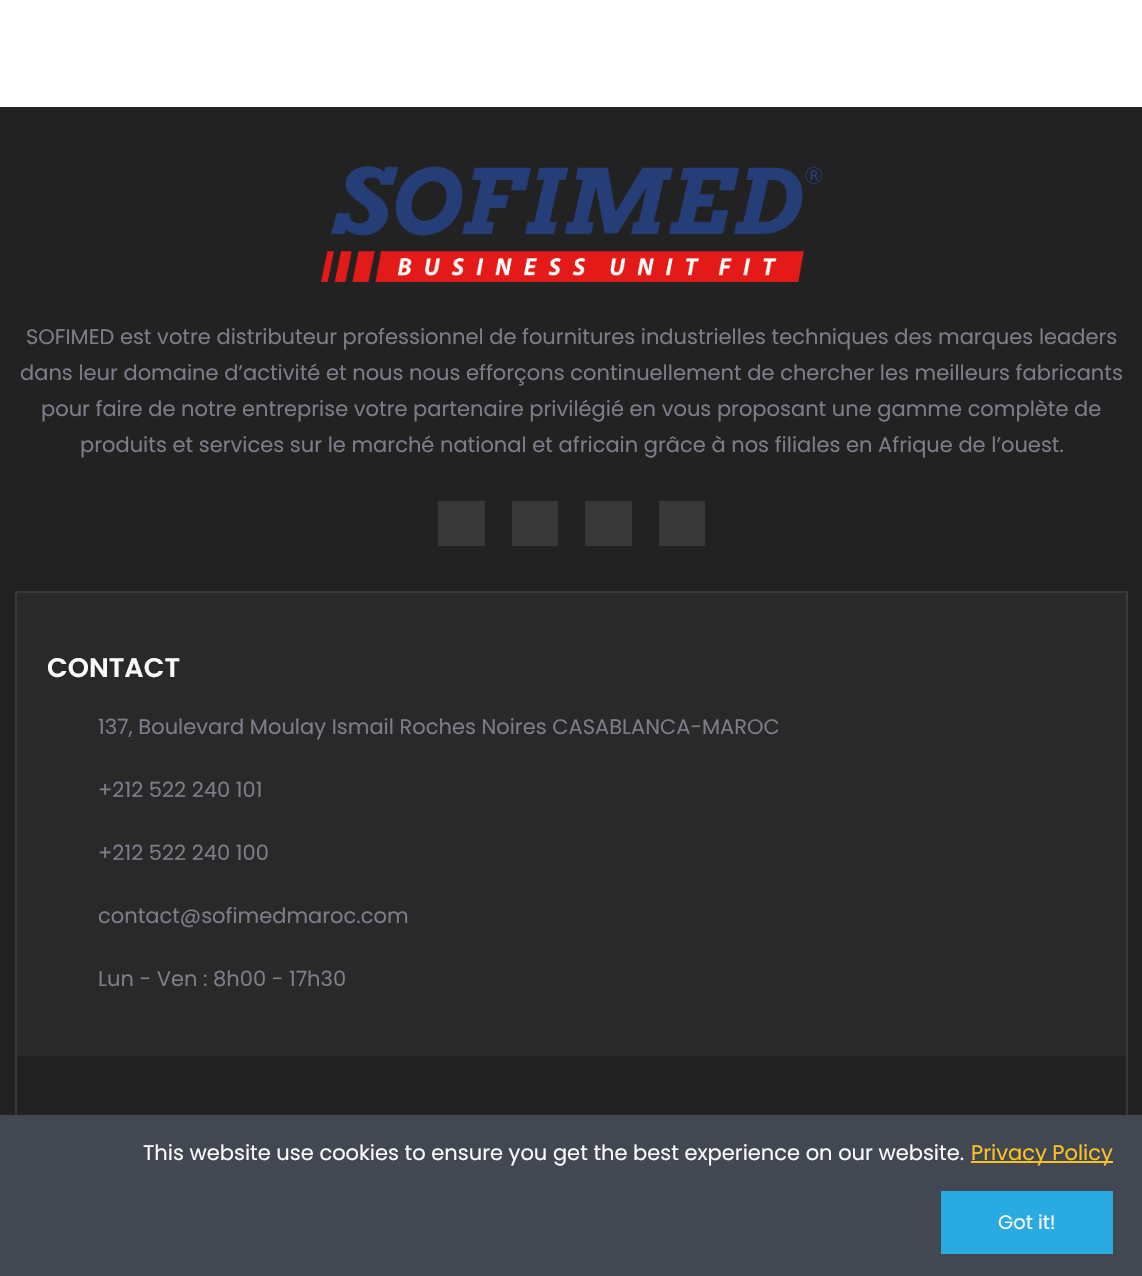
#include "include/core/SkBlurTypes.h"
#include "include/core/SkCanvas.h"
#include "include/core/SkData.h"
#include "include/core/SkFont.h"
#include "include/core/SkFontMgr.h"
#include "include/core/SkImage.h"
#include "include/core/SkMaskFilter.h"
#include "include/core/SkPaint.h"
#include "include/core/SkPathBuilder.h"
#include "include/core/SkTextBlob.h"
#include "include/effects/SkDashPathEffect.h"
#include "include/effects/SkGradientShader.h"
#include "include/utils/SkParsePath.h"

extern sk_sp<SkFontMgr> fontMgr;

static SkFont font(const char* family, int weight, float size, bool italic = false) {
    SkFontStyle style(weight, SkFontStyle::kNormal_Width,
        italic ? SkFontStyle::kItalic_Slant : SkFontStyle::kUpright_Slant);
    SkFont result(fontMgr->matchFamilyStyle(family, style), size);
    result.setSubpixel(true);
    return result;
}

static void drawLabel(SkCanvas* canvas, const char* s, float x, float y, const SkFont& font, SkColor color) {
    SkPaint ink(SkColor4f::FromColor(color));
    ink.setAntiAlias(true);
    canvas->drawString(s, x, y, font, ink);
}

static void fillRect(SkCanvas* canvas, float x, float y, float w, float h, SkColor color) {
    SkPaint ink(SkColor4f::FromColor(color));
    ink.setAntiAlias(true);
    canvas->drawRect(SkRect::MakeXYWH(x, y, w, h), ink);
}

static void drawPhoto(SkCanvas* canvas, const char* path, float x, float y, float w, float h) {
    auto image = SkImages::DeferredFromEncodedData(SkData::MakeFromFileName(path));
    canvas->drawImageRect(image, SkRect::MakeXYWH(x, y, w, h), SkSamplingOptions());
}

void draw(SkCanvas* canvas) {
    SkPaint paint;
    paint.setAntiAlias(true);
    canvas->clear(0xFFFFFFFF);
    fillRect(canvas, 0, 107, 1142, 1008, 0xFF222222);
    drawPhoto(canvas, "assets/img1.png", 321, 166, 501, 116);
    SkFont font1 = font("Poppins", 400, 21);
    drawLabel(canvas, "SOFIMED est votre distributeur professionnel de fournitures industrielles techniques des marques leaders", 26, 344, font1, 0xFF7C7D89);
    drawLabel(canvas, "dans leur domaine d’activité et nous nous efforçons continuellement de chercher les meilleurs fabricants", 20, 380, font1, 0xFF7C7D89);
    drawLabel(canvas, "pour faire de notre entreprise votre partenaire privilégié en vous proposant une gamme complète de", 41, 416, font1, 0xFF7C7D89);
    drawLabel(canvas, "produits et services sur le marché national et africain grâce à nos filiales en Afrique de l’ouest.", 80, 452, font1, 0xFF7C7D89);
    fillRect(canvas, 438, 501, 47, 45, 0xFF383838);
    fillRect(canvas, 512, 501, 46, 45, 0xFF383838);
    fillRect(canvas, 585, 501, 47, 45, 0xFF383838);
    fillRect(canvas, 659, 501, 46, 45, 0xFF383838);
    paint.setStroke(true);
    paint.setStrokeWidth(2);
    paint.setColor(0xFF383838);
    canvas->drawRect(SkRect::MakeXYWH(16, 592, 1111, 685), paint);
    fillRect(canvas, 17, 593, 1110, 463, 0x08FFFFFF);
    SkFont font2 = font("Poppins", 600, 27);
    drawLabel(canvas, "CONTACT", 47, 677, font2, 0xFFFAFAFA);
    drawLabel(canvas, "137, Boulevard Moulay Ismail Roches Noires CASABLANCA-MAROC", 98, 734, font1, 0xFF7C7D89);
    drawLabel(canvas, "+212 522 240 101", 98, 797, font1, 0xFF7C7D89);
    drawLabel(canvas, "+212 522 240 100", 98, 860, font1, 0xFF7C7D89);
    drawLabel(canvas, "contact@sofimedmaroc.com", 98, 923, font1, 0xFF7C7D89);
    drawLabel(canvas, "Lun - Ven : 8h00 - 17h30", 98, 986, font1, 0xFF7C7D89);
    fillRect(canvas, 0, 1115, 1142, 161, 0xFF424851);
    drawLabel(canvas, "This website use cookies to ensure you get the best experience on our website.", 143, 1160, font1, 0xFFFAFAFA);
    fillRect(canvas, 971, 1161, 142, 2, 0xFFFBC227);
    drawLabel(canvas, "Privacy Policy", 971, 1160, font1, 0xFFFBC227);
    fillRect(canvas, 941, 1191, 172, 63, 0xFF29ABE2);
    SkFont font3 = font("Poppins", 400, 19.5f);
    drawLabel(canvas, "Got it!", 998, 1229, font3, 0xFFFAFAFA);
}
